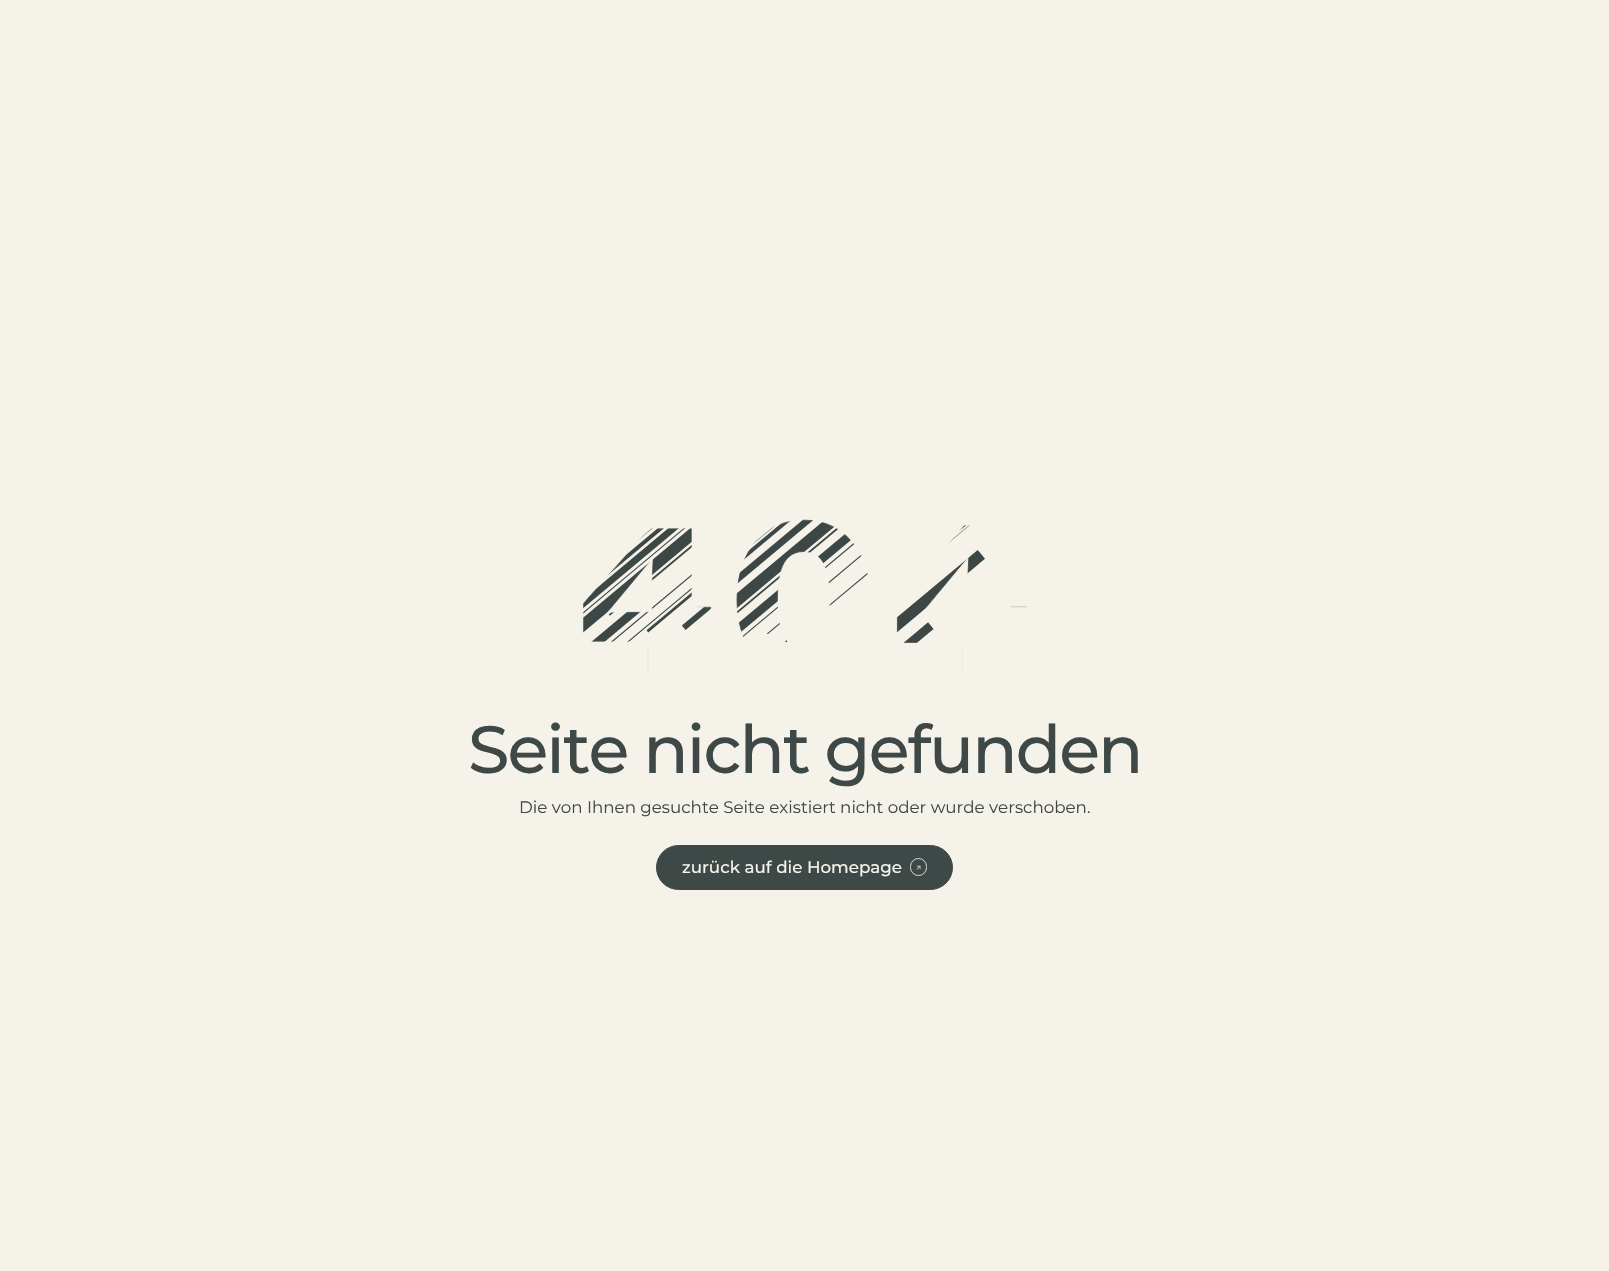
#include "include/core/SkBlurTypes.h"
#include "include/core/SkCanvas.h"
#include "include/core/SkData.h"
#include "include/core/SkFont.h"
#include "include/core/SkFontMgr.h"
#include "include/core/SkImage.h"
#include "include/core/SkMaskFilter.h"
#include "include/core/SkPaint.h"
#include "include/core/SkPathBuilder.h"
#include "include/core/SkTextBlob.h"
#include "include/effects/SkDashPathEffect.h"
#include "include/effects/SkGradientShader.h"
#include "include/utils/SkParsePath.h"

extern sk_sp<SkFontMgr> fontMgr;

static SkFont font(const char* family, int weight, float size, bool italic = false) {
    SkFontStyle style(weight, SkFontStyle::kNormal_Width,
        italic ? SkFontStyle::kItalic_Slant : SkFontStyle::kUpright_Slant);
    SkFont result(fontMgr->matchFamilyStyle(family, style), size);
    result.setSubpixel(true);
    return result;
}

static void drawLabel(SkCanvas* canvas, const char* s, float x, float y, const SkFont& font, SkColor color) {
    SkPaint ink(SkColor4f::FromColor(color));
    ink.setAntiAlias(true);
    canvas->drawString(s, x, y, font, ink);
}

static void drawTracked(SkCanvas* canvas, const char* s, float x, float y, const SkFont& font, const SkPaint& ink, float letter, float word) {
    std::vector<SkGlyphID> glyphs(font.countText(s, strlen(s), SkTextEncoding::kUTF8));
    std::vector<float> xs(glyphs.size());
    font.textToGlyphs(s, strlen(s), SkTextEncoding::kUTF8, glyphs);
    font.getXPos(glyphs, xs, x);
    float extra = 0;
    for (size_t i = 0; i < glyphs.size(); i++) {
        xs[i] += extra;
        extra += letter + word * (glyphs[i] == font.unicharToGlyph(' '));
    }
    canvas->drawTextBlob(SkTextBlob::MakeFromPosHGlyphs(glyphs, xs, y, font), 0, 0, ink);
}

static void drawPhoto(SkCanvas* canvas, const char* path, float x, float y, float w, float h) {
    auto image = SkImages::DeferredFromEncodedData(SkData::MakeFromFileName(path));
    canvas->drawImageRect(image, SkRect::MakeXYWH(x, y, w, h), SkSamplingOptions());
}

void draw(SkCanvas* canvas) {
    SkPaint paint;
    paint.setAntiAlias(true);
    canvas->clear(0xFFF5F2EA);
    drawPhoto(canvas, "assets/img1.png", 583, 519, 444, 156);
    SkFont font1 = font("Montserrat", 500, 66.75f);
    paint.setColor(0xFF3E4947);
    drawTracked(canvas, "Seite nicht gefunden", 468, 773, font1, paint, -2, 0);
    SkFont font2 = font("Montserrat", 400, 16.7f);
    drawLabel(canvas, "Die von Ihnen gesuchte Seite existiert nicht oder wurde verschoben.", 519, 813, font2, 0xFF3E4947);
    canvas->drawRoundRect(SkRect::MakeXYWH(656.5f, 845.5f, 296, 44), 22, 22, paint);
    paint.setStroke(true);
    paint.setStrokeWidth(1);
    canvas->drawRoundRect(SkRect::MakeXYWH(656.5f, 845.5f, 296, 44), 22, 22, paint);
    SkFont font3 = font("Montserrat", 500, 16.7f);
    drawLabel(canvas, "zurück auf die Homepage", 682, 873, font3, 0xFFF5F2EA);
    paint.setColor(0xFFDADADA);
    canvas->drawRoundRect(SkRect::MakeXYWH(910.5f, 858.5f, 16, 17), 8, 8, paint);
    drawPhoto(canvas, "assets/img2.png", 916, 865, 5, 5);
}
